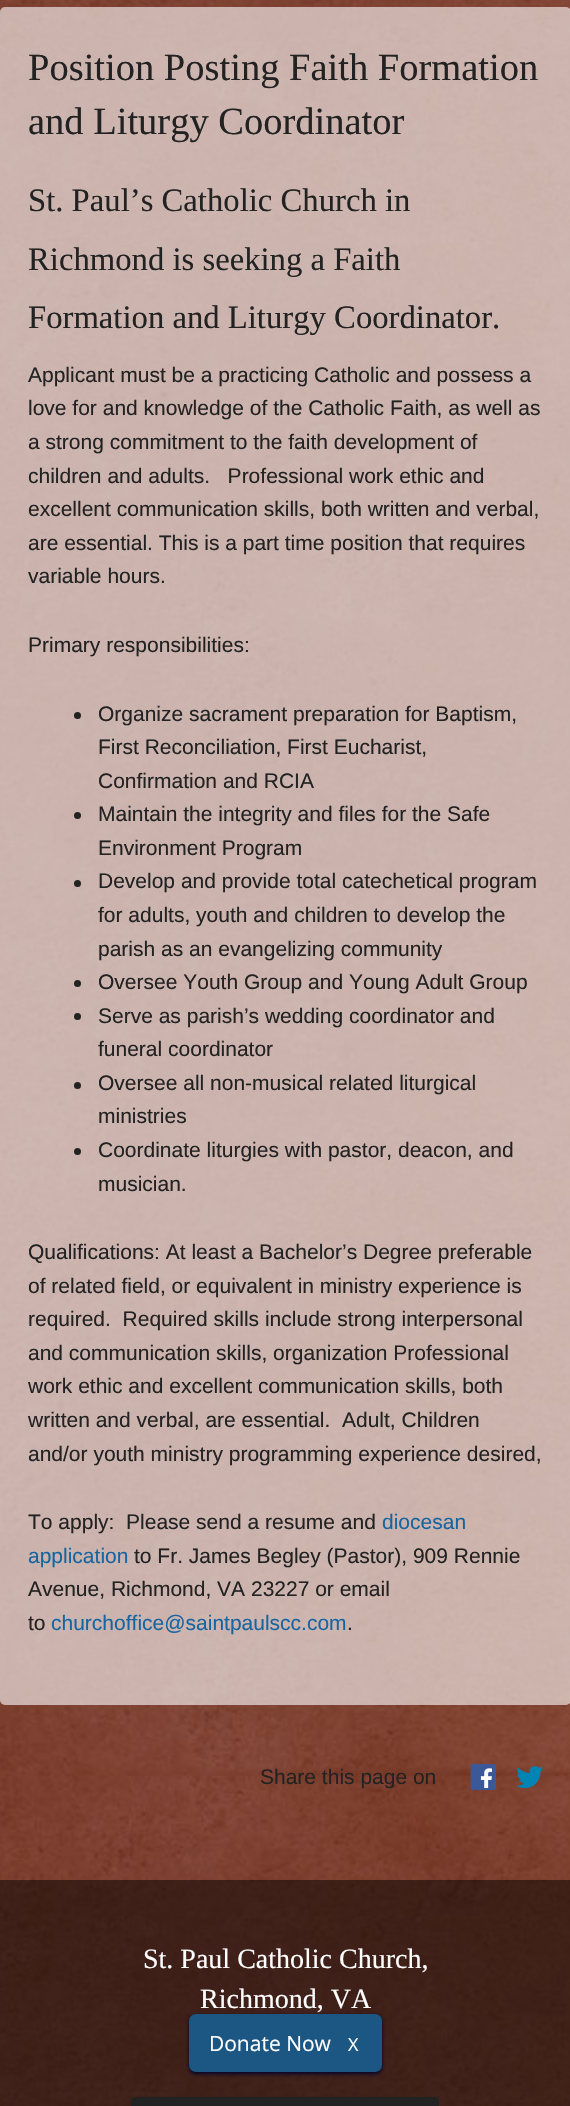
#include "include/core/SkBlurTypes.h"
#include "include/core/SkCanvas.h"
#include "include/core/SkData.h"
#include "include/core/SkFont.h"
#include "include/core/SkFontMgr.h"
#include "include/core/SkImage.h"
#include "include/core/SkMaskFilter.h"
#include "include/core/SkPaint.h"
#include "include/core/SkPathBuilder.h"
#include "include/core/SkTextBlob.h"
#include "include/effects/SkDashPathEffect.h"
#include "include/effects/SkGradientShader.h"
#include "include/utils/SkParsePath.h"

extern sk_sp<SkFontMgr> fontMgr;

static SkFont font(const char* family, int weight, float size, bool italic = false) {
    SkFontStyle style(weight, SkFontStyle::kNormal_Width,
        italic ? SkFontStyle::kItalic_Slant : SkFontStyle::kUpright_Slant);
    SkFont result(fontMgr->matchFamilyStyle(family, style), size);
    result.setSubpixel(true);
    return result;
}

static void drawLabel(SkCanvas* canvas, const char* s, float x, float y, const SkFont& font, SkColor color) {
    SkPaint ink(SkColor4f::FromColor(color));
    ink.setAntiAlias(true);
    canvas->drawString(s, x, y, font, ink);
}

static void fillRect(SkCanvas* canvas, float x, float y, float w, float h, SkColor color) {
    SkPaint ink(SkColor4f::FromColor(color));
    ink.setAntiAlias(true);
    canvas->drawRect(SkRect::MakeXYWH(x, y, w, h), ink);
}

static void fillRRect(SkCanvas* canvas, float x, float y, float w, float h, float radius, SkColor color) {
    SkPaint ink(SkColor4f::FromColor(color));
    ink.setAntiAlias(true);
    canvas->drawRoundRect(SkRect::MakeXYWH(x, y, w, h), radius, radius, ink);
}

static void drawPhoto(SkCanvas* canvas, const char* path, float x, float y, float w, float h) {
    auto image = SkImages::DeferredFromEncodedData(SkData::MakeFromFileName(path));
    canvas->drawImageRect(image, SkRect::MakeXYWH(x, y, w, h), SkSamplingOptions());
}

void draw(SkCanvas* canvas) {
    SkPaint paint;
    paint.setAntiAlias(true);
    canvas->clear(0xFFFFFFFF);
    drawPhoto(canvas, "assets/img1.png", 0, 0, 570, 2106);
    fillRRect(canvas, 0, 7, 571, 1698, 5, 0x99FFFFFF);
    SkFont font1 = font("Liberation Serif", 400, 38.5f);
    drawLabel(canvas, "Position Posting Faith Formation", 28, 80, font1, 0xFF222222);
    drawLabel(canvas, "and Liturgy Coordinator", 28, 134, font1, 0xFF222222);
    SkFont font2 = font("Liberation Serif", 400, 32.7f);
    drawLabel(canvas, "St. Paul’s Catholic Church in", 28, 211, font2, 0xFF222222);
    drawLabel(canvas, "Richmond is seeking a Faith", 28, 270, font2, 0xFF222222);
    drawLabel(canvas, "Formation and Liturgy Coordinator.", 28, 328, font2, 0xFF222222);
    SkFont font3 = font("Liberation Sans", 400, 21);
    drawLabel(canvas, "Applicant must be a practicing Catholic and possess a", 28, 382, font3, 0xFF222222);
    drawLabel(canvas, "love for and knowledge of the Catholic Faith, as well as", 28, 415, font3, 0xFF222222);
    drawLabel(canvas, "a strong commitment to the faith development of", 28, 449, font3, 0xFF222222);
    drawLabel(canvas, "children and adults.   Professional work ethic and", 28, 483, font3, 0xFF222222);
    drawLabel(canvas, "excellent communication skills, both written and verbal,", 28, 516, font3, 0xFF222222);
    drawLabel(canvas, "are essential. This is a part time position that requires", 28, 550, font3, 0xFF222222);
    drawLabel(canvas, "variable hours.", 28, 583, font3, 0xFF222222);
    drawLabel(canvas, "Primary responsibilities:", 28, 652, font3, 0xFF222222);
    paint.setColor(0xFF222222);
    canvas->drawCircle(77.5f, 715.5f, 3.5f, paint);
    drawLabel(canvas, "Organize sacrament preparation for Baptism,", 98, 721, font3, 0xFF222222);
    drawLabel(canvas, "First Reconciliation, First Eucharist,", 98, 754, font3, 0xFF222222);
    drawLabel(canvas, "Confirmation and RCIA", 98, 788, font3, 0xFF222222);
    canvas->drawCircle(77.5f, 815.5f, 3.5f, paint);
    drawLabel(canvas, "Maintain the integrity and files for the Safe", 98, 821, font3, 0xFF222222);
    drawLabel(canvas, "Environment Program", 98, 855, font3, 0xFF222222);
    canvas->drawCircle(77.5f, 883.5f, 3.5f, paint);
    drawLabel(canvas, "Develop and provide total catechetical program", 98, 888, font3, 0xFF222222);
    drawLabel(canvas, "for adults, youth and children to develop the", 98, 922, font3, 0xFF222222);
    drawLabel(canvas, "parish as an evangelizing community", 98, 956, font3, 0xFF222222);
    canvas->drawCircle(77.5f, 983.5f, 3.5f, paint);
    drawLabel(canvas, "Oversee Youth Group and Young Adult Group", 98, 989, font3, 0xFF222222);
    canvas->drawCircle(77.5f, 1016.5f, 3.5f, paint);
    drawLabel(canvas, "Serve as parish’s wedding coordinator and", 98, 1023, font3, 0xFF222222);
    drawLabel(canvas, "funeral coordinator", 98, 1056, font3, 0xFF222222);
    canvas->drawCircle(77.5f, 1085.5f, 3.5f, paint);
    drawLabel(canvas, "Oversee all non-musical related liturgical", 98, 1090, font3, 0xFF222222);
    drawLabel(canvas, "ministries", 98, 1123, font3, 0xFF222222);
    canvas->drawCircle(77.5f, 1151.5f, 3.5f, paint);
    drawLabel(canvas, "Coordinate liturgies with pastor, deacon, and", 98, 1157, font3, 0xFF222222);
    drawLabel(canvas, "musician.", 98, 1191, font3, 0xFF222222);
    drawLabel(canvas, "Qualifications: At least a Bachelor’s Degree preferable", 28, 1259, font3, 0xFF222222);
    drawLabel(canvas, "of related field, or equivalent in ministry experience is", 28, 1293, font3, 0xFF222222);
    drawLabel(canvas, "required.  Required skills include strong interpersonal", 28, 1326, font3, 0xFF222222);
    drawLabel(canvas, "and communication skills, organization Professional", 28, 1360, font3, 0xFF222222);
    drawLabel(canvas, "work ethic and excellent communication skills, both", 28, 1393, font3, 0xFF222222);
    drawLabel(canvas, "written and verbal, are essential.  Adult, Children", 28, 1427, font3, 0xFF222222);
    drawLabel(canvas, "and/or youth ministry programming experience desired,", 28, 1461, font3, 0xFF222222);
    drawLabel(canvas, "To apply:  Please send a resume and", 28, 1529, font3, 0xFF222222);
    drawLabel(canvas, "diocesan", 382, 1529, font3, 0xFF1765A0);
    drawLabel(canvas, "application", 28, 1563, font3, 0xFF1765A0);
    drawLabel(canvas, "to Fr. James Begley (Pastor), 909 Rennie", 134, 1563, font3, 0xFF222222);
    drawLabel(canvas, "Avenue, Richmond, VA 23227 or email", 28, 1596, font3, 0xFF222222);
    drawLabel(canvas, "to", 28, 1630, font3, 0xFF222222);
    drawLabel(canvas, "churchoffice@saintpaulscc.com", 51, 1630, font3, 0xFF1765A0);
    drawLabel(canvas, ".", 347, 1630, font3, 0xFF222222);
    drawLabel(canvas, "Share this page on", 260, 1784, font3, 0xFF222222);
    paint.setColor(0xFFFFFFFF);
    canvas->drawRoundRect(SkRect::MakeXYWH(472, 1765, 22, 24), 1.5f, 1.5f, paint);
    paint.setStroke(true);
    paint.setStrokeWidth(2);
    paint.setColor(0xFF3B5998);
    canvas->drawRoundRect(SkRect::MakeXYWH(472, 1765, 22, 24), 1.5f, 1.5f, paint);
    drawPhoto(canvas, "assets/img2.png", 470, 1764, 26, 26);
    drawPhoto(canvas, "assets/img3.png", 516, 1766, 27, 23);
    fillRect(canvas, 0, 1880, 570, 226, 0x80000000);
    SkFont font4 = font("Liberation Serif", 400, 28);
    drawLabel(canvas, "St. Paul Catholic Church,", 143, 1968, font4, 0xFFFFFFFF);
    drawLabel(canvas, "Richmond, VA", 200, 2008, font4, 0xFFFFFFFF);
    fillRRect(canvas, 131, 2097, 308, 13, 4, 0xFF222222);
    paint.setStroke(false);
    paint.setColor(0xFF000029);
    paint.setMaskFilter(SkMaskFilter::MakeBlur(kNormal_SkBlurStyle, 2));
    canvas->drawRoundRect(SkRect::MakeXYWH(189, 2016, 193, 58), 7, 7, paint);
    paint.setMaskFilter(nullptr);
    fillRRect(canvas, 189, 2014, 193, 58, 7, 0xFF1C5682);
    SkFont font5 = font("Open Sans", 400, 21);
    drawLabel(canvas, "Donate Now", 209, 2051, font5, 0xFFFFFFFF);
    SkFont font6 = font("Open Sans", 400, 18);
    drawLabel(canvas, "X", 348, 2051, font6, 0xFFFFFFFF);
}
